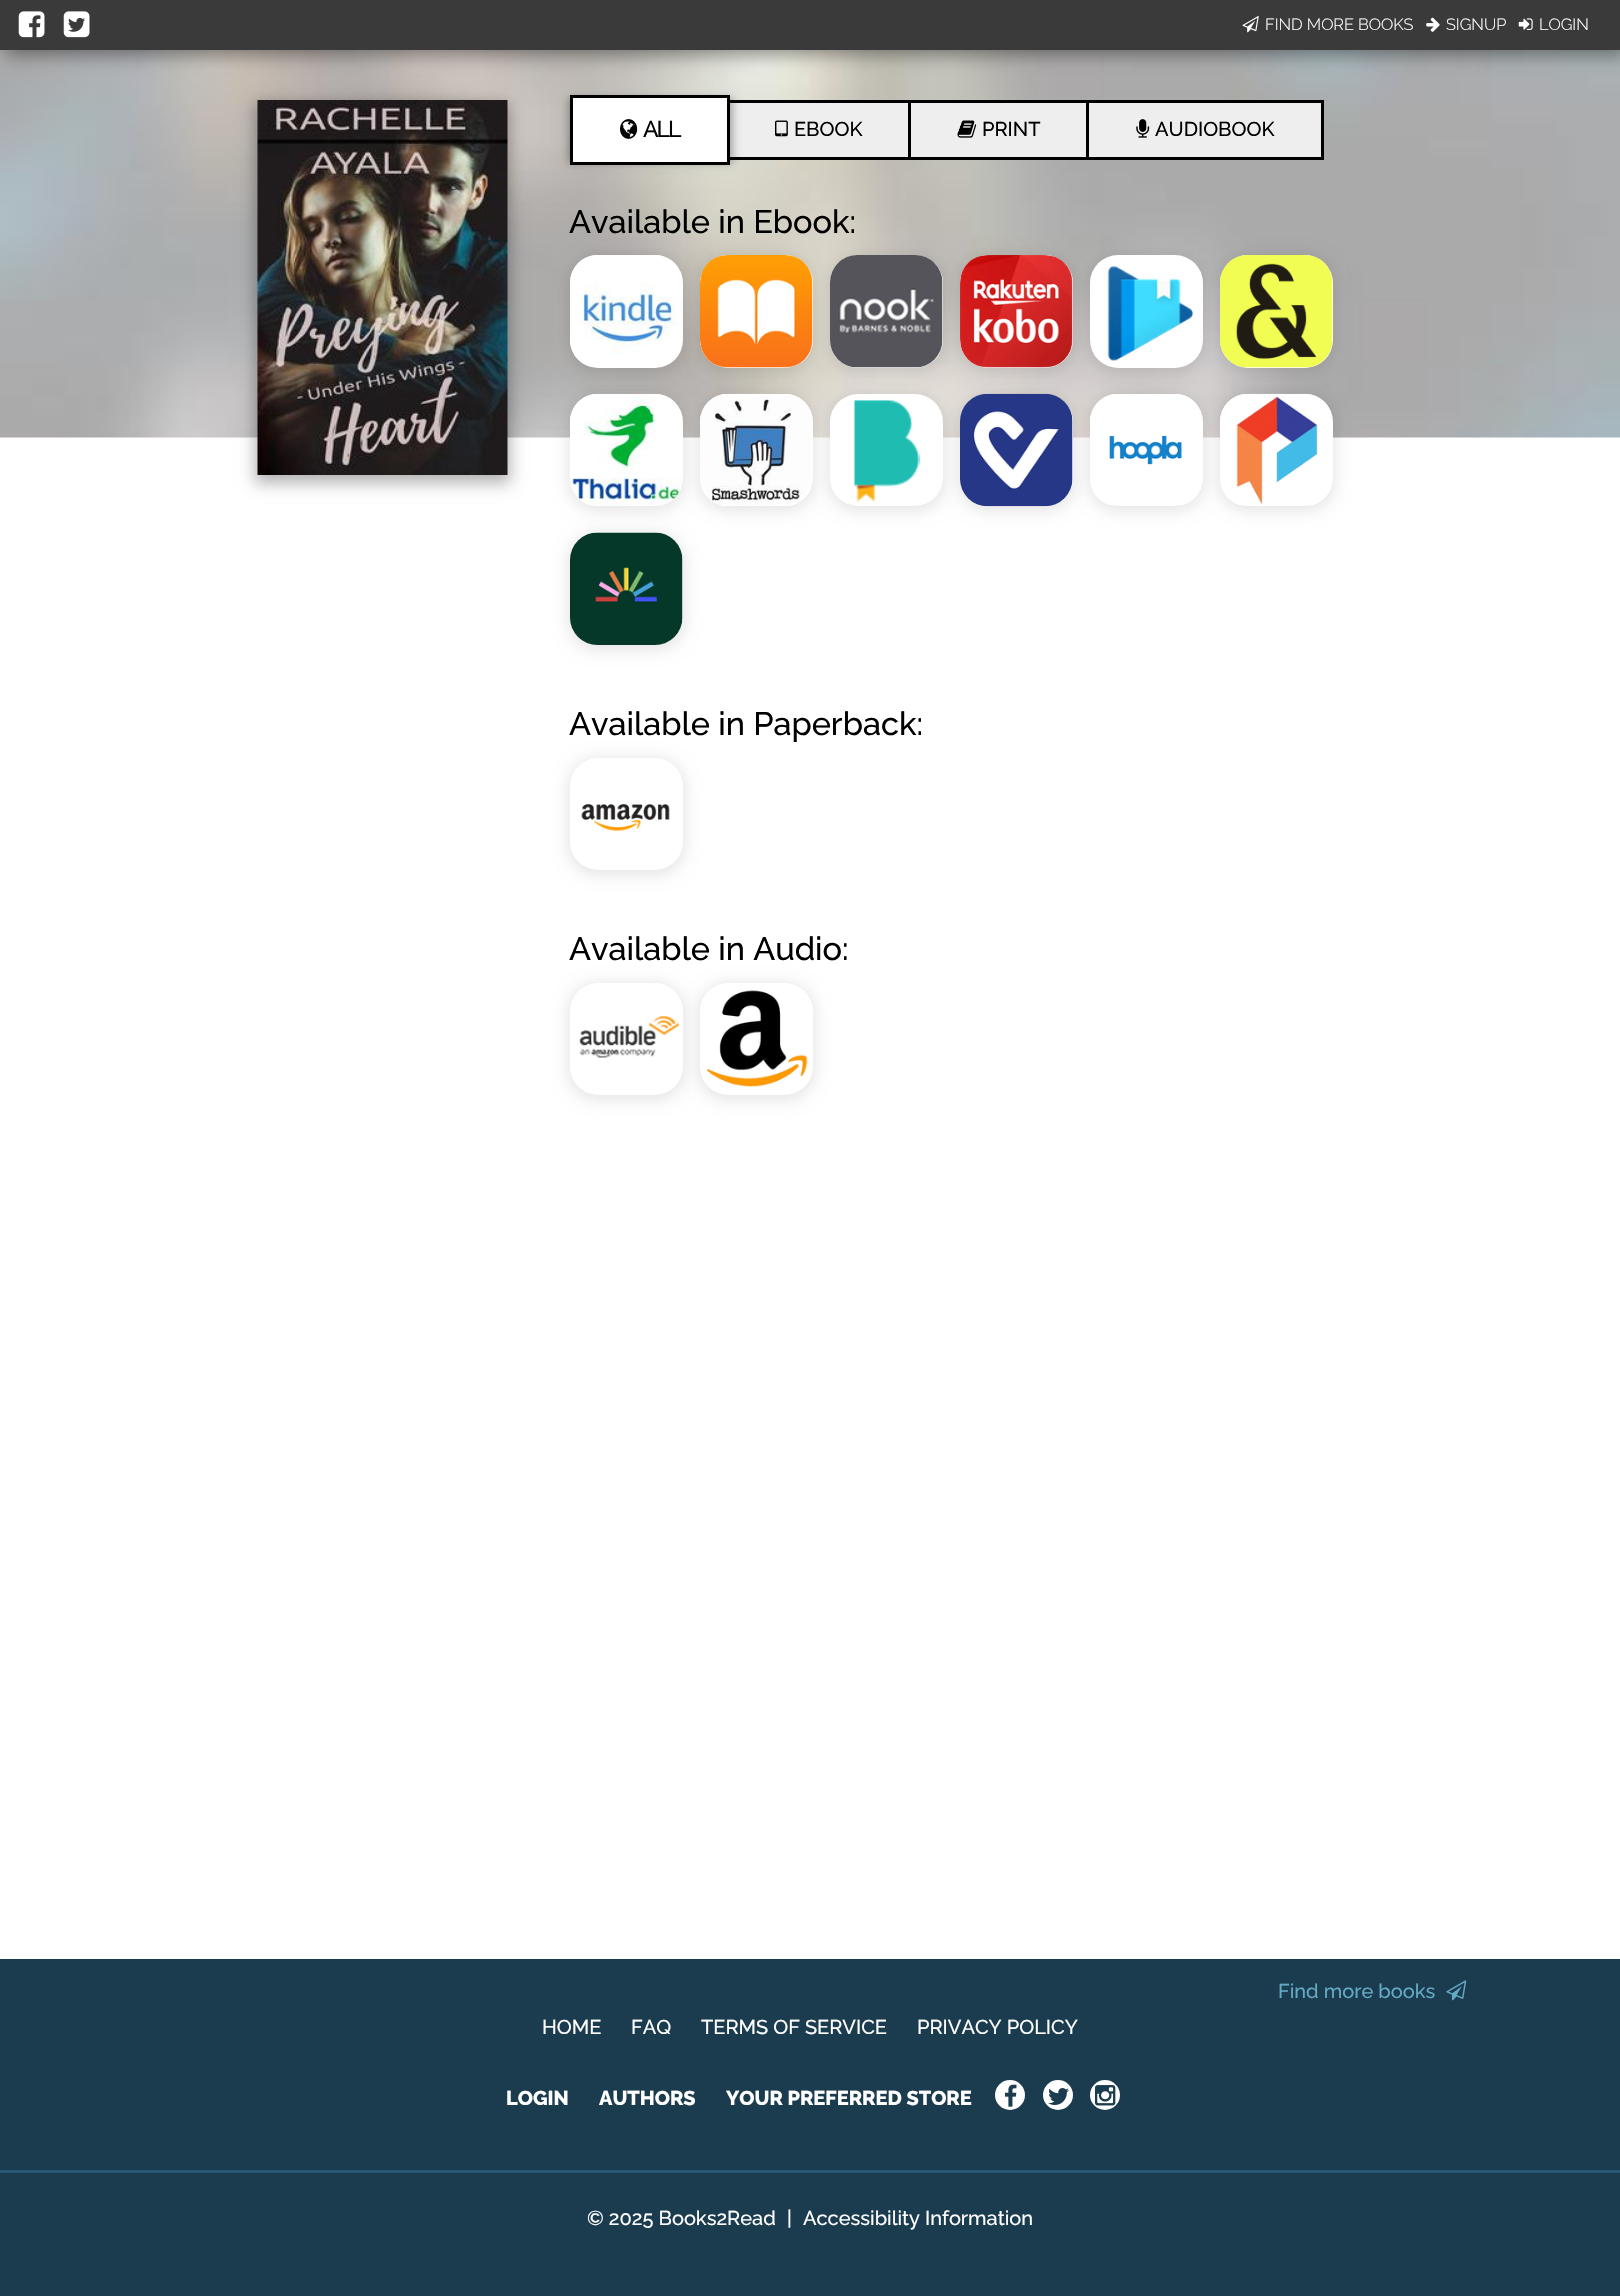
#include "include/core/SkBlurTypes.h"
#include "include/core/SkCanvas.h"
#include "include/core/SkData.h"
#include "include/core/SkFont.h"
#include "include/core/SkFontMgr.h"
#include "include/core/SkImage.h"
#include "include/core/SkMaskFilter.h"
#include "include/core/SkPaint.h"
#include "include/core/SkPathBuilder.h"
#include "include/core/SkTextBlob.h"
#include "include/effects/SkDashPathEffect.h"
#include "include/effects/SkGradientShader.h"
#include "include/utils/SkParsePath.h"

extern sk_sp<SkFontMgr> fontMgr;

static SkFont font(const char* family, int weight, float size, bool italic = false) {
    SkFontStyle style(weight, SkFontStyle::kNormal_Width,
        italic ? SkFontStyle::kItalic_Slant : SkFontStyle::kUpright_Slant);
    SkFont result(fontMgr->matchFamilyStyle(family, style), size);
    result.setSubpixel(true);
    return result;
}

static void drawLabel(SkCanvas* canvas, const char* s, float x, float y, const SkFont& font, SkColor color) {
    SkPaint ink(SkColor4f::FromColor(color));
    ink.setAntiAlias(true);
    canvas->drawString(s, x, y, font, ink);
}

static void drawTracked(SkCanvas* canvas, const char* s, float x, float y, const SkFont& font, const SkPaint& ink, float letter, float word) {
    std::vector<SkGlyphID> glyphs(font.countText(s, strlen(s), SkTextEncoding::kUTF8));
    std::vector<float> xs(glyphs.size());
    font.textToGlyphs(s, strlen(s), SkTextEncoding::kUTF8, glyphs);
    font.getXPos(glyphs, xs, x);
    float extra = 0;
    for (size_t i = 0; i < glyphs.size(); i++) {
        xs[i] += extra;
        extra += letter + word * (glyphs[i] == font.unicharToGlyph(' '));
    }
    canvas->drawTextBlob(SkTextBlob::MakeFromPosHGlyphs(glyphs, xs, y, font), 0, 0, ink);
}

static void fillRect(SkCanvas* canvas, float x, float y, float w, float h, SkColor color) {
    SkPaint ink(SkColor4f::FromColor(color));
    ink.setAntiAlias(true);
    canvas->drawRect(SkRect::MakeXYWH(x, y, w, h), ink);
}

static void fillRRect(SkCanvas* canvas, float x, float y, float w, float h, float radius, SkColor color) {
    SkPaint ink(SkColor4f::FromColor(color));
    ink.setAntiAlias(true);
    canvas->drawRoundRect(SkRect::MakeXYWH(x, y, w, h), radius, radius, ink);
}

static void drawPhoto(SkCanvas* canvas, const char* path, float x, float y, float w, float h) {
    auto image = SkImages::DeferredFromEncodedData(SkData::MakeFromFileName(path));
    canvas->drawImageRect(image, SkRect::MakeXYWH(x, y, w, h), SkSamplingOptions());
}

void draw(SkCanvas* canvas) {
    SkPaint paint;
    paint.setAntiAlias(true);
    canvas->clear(0xFFFFFFFF);
    drawPhoto(canvas, "assets/img1.png", 0, 50, 1620, 388);
    paint.setColor(0x66000000);
    paint.setMaskFilter(SkMaskFilter::MakeBlur(kNormal_SkBlurStyle, 9));
    canvas->drawRect(SkRect::MakeXYWH(5, 5, 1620, 50), paint);
    paint.setMaskFilter(nullptr);
    fillRect(canvas, 0, 0, 1620, 50, 0xFF3A3A3A);
    drawPhoto(canvas, "assets/img2.png", 18, 11, 27, 27);
    drawPhoto(canvas, "assets/img3.png", 63, 11, 27, 27);
    drawPhoto(canvas, "assets/img4.png", 1242, 16, 17, 17);
    SkFont font1 = font("Raleway", 300, 16.25f);
    drawLabel(canvas, "FIND MORE BOOKS", 1265, 30, font1, 0xFFFFFFFF);
    drawPhoto(canvas, "assets/img5.png", 1426, 17, 14, 15);
    drawLabel(canvas, "SIGNUP", 1446, 30, font1, 0xFFFFFFFF);
    drawPhoto(canvas, "assets/img6.png", 1518, 18, 15, 12);
    drawLabel(canvas, "LOGIN", 1539, 30, font1, 0xFFFFFFFF);
    paint.setColor(0x4D000000);
    paint.setMaskFilter(SkMaskFilter::MakeBlur(kNormal_SkBlurStyle, 7.5f));
    canvas->drawRect(SkRect::MakeXYWH(255, 103, 255, 380), paint);
    paint.setMaskFilter(nullptr);
    drawPhoto(canvas, "assets/img7.png", 257, 100, 251, 375);
    fillRect(canvas, 730, 103, 178, 54, 0xFFEEEEEE);
    paint.setStroke(true);
    paint.setStrokeWidth(3);
    paint.setColor(0xFF000000);
    canvas->drawRect(SkRect::MakeXYWH(726.5f, 101.5f, 185, 57), paint);
    paint.setStroke(false);
    paint.setColor(0x4D000000);
    paint.setMaskFilter(SkMaskFilter::MakeBlur(kNormal_SkBlurStyle, 4));
    canvas->drawRect(SkRect::MakeXYWH(568, 98, 165, 65), paint);
    paint.setMaskFilter(nullptr);
    paint.setColor(0xFFFFFFFF);
    canvas->drawRect(SkRect::MakeXYWH(571.5f, 96.5f, 157, 67), paint);
    paint.setStroke(true);
    paint.setColor(0xFF000000);
    canvas->drawRect(SkRect::MakeXYWH(571.5f, 96.5f, 157, 67), paint);
    drawPhoto(canvas, "assets/img8.png", 620, 119, 18, 20);
    SkFont font2 = font("Raleway", 500, 23);
    paint.setStroke(false);
    drawTracked(canvas, "ALL", 643, 137, font2, paint, -2, 0);
    drawPhoto(canvas, "assets/img9.png", 775, 120, 13, 17);
    SkFont font3 = font("Raleway", 500, 20);
    drawLabel(canvas, "EBOOK", 794, 136, font3, 0xFF000000);
    fillRect(canvas, 911, 103, 175, 54, 0xFFEEEEEE);
    paint.setStroke(true);
    canvas->drawRect(SkRect::MakeXYWH(909.5f, 101.5f, 180, 57), paint);
    drawPhoto(canvas, "assets/img10.png", 957, 120, 20, 18);
    drawLabel(canvas, "PRINT", 982, 136, font3, 0xFF000000);
    paint.setStroke(false);
    paint.setColor(0xFFEEEEEE);
    canvas->drawRect(SkRect::MakeXYWH(1087.5f, 101.5f, 235, 57), paint);
    paint.setStroke(true);
    paint.setColor(0xFF000000);
    canvas->drawRect(SkRect::MakeXYWH(1087.5f, 101.5f, 235, 57), paint);
    drawPhoto(canvas, "assets/img11.png", 1136, 119, 14, 19);
    drawLabel(canvas, "AUDIOBOOK", 1155, 136, font3, 0xFF000000);
    paint.setStroke(false);
    paint.setColor(0x1A000000);
    paint.setMaskFilter(SkMaskFilter::MakeBlur(kNormal_SkBlurStyle, 7.5f));
    canvas->drawRoundRect(SkRect::MakeXYWH(568, 255, 117, 118), 30, 30, paint);
    paint.setMaskFilter(nullptr);
    fillRRect(canvas, 570, 255, 113, 113, 28, 0xFFFFFFFF);
    drawPhoto(canvas, "assets/img12.png", 570, 255, 112, 112);
    paint.setMaskFilter(SkMaskFilter::MakeBlur(kNormal_SkBlurStyle, 7.5f));
    canvas->drawRoundRect(SkRect::MakeXYWH(698, 255, 117, 118), 30, 30, paint);
    paint.setMaskFilter(nullptr);
    fillRRect(canvas, 700, 255, 113, 113, 28, 0xFFFFFFFF);
    drawPhoto(canvas, "assets/img13.png", 700, 255, 113, 113);
    paint.setMaskFilter(SkMaskFilter::MakeBlur(kNormal_SkBlurStyle, 7.5f));
    canvas->drawRoundRect(SkRect::MakeXYWH(828, 255, 117, 118), 30, 30, paint);
    paint.setMaskFilter(nullptr);
    SkFont font4 = font("Raleway", 500, 32.5f);
    drawLabel(canvas, "Available in Ebook:", 569, 233, font4, 0xFF000000);
    fillRRect(canvas, 830, 255, 113, 113, 28, 0xFFFFFFFF);
    drawPhoto(canvas, "assets/img14.png", 830, 255, 113, 113);
    paint.setMaskFilter(SkMaskFilter::MakeBlur(kNormal_SkBlurStyle, 7.5f));
    canvas->drawRoundRect(SkRect::MakeXYWH(958, 255, 117, 118), 30, 30, paint);
    paint.setMaskFilter(nullptr);
    fillRRect(canvas, 960, 255, 113, 113, 28, 0xFFFFFFFF);
    drawPhoto(canvas, "assets/img15.png", 960, 255, 113, 113);
    paint.setMaskFilter(SkMaskFilter::MakeBlur(kNormal_SkBlurStyle, 7.5f));
    canvas->drawRoundRect(SkRect::MakeXYWH(1088, 255, 117, 118), 30, 30, paint);
    paint.setMaskFilter(nullptr);
    fillRRect(canvas, 1090, 255, 113, 113, 28, 0xFFFFFFFF);
    paint.setMaskFilter(SkMaskFilter::MakeBlur(kNormal_SkBlurStyle, 7.5f));
    canvas->drawRoundRect(SkRect::MakeXYWH(1218, 255, 117, 118), 30, 30, paint);
    paint.setMaskFilter(nullptr);
    fillRRect(canvas, 1220, 255, 113, 113, 28, 0xFFFFFFFF);
    drawPhoto(canvas, "assets/img16.png", 1107, 266, 87, 95);
    drawPhoto(canvas, "assets/img17.png", 1220, 255, 113, 113);
    paint.setMaskFilter(SkMaskFilter::MakeBlur(kNormal_SkBlurStyle, 7.5f));
    canvas->drawRoundRect(SkRect::MakeXYWH(568, 394, 117, 117), 30, 30, paint);
    paint.setMaskFilter(nullptr);
    fillRRect(canvas, 570, 394, 113, 112, 28, 0xFFFFFFFF);
    drawPhoto(canvas, "assets/img18.png", 570, 393, 112, 113);
    paint.setMaskFilter(SkMaskFilter::MakeBlur(kNormal_SkBlurStyle, 7.5f));
    canvas->drawRoundRect(SkRect::MakeXYWH(698, 394, 117, 117), 30, 30, paint);
    paint.setMaskFilter(nullptr);
    fillRRect(canvas, 700, 394, 113, 112, 28, 0xFFFFFFFF);
    drawPhoto(canvas, "assets/img19.png", 700, 393, 111, 113);
    paint.setMaskFilter(SkMaskFilter::MakeBlur(kNormal_SkBlurStyle, 7.5f));
    canvas->drawRoundRect(SkRect::MakeXYWH(828, 394, 117, 117), 30, 30, paint);
    paint.setMaskFilter(nullptr);
    fillRRect(canvas, 830, 394, 113, 112, 28, 0xFFFFFFFF);
    paint.setMaskFilter(SkMaskFilter::MakeBlur(kNormal_SkBlurStyle, 7.5f));
    canvas->drawRoundRect(SkRect::MakeXYWH(958, 394, 117, 117), 30, 30, paint);
    paint.setMaskFilter(nullptr);
    fillRRect(canvas, 960, 394, 113, 112, 28, 0xFFFFFFFF);
    drawPhoto(canvas, "assets/img20.png", 960, 393, 113, 114);
    paint.setMaskFilter(SkMaskFilter::MakeBlur(kNormal_SkBlurStyle, 7.5f));
    canvas->drawRoundRect(SkRect::MakeXYWH(1088, 394, 117, 117), 30, 30, paint);
    paint.setMaskFilter(nullptr);
    fillRRect(canvas, 1090, 394, 113, 112, 28, 0xFFFFFFFF);
    drawPhoto(canvas, "assets/img23.png", 1090, 394, 111, 111);
    paint.setMaskFilter(SkMaskFilter::MakeBlur(kNormal_SkBlurStyle, 7.5f));
    canvas->drawRoundRect(SkRect::MakeXYWH(1218, 394, 117, 117), 30, 30, paint);
    paint.setMaskFilter(nullptr);
    fillRRect(canvas, 1220, 394, 113, 112, 28, 0xFFFFFFFF);
    drawPhoto(canvas, "assets/img21.png", 1220, 393, 112, 112);
    drawPhoto(canvas, "assets/img22.png", 853, 398, 68, 104);
    paint.setMaskFilter(SkMaskFilter::MakeBlur(kNormal_SkBlurStyle, 7.5f));
    canvas->drawRoundRect(SkRect::MakeXYWH(568, 533, 117, 117), 30, 30, paint);
    paint.setMaskFilter(nullptr);
    fillRRect(canvas, 570, 533, 113, 112, 28, 0xFFFFFFFF);
    drawPhoto(canvas, "assets/img24.png", 570, 532, 113, 113);
    paint.setMaskFilter(SkMaskFilter::MakeBlur(kNormal_SkBlurStyle, 7.5f));
    canvas->drawRoundRect(SkRect::MakeXYWH(568, 758, 117, 117), 30, 30, paint);
    paint.setMaskFilter(nullptr);
    drawLabel(canvas, "Available in Paperback:", 569, 735, font4, 0xFF000000);
    fillRRect(canvas, 570, 758, 113, 112, 28, 0xFFFFFFFF);
    drawPhoto(canvas, "assets/img25.png", 581, 804, 89, 28);
    paint.setMaskFilter(SkMaskFilter::MakeBlur(kNormal_SkBlurStyle, 7.5f));
    canvas->drawRoundRect(SkRect::MakeXYWH(568, 983, 117, 117), 30, 30, paint);
    paint.setMaskFilter(nullptr);
    fillRRect(canvas, 570, 983, 113, 112, 28, 0xFFFFFFFF);
    drawPhoto(canvas, "assets/img26.png", 577, 1016, 102, 42);
    paint.setMaskFilter(SkMaskFilter::MakeBlur(kNormal_SkBlurStyle, 7.5f));
    canvas->drawRoundRect(SkRect::MakeXYWH(698, 983, 117, 117), 30, 30, paint);
    paint.setMaskFilter(nullptr);
    drawLabel(canvas, "Available in Audio:", 569, 960, font4, 0xFF000000);
    fillRRect(canvas, 700, 983, 113, 112, 28, 0xFFFFFFFF);
    drawPhoto(canvas, "assets/img27.png", 707, 990, 101, 97);
    fillRect(canvas, 0, 1959, 1620, 337, 0xFF1B3B4F);
    drawLabel(canvas, "Find more books", 1278, 1998, font3, 0xFF63AAC5);
    drawPhoto(canvas, "assets/img28.png", 1446, 1980, 21, 21);
    drawLabel(canvas, "HOME", 542, 2034, font3, 0xFFFFFFFF);
    drawLabel(canvas, "FAQ", 631, 2034, font3, 0xFFFFFFFF);
    drawLabel(canvas, "TERMS OF SERVICE", 701, 2034, font3, 0xFFFFFFFF);
    drawLabel(canvas, "PRIVACY POLICY", 917, 2034, font3, 0xFFFFFFFF);
    SkFont font5 = font("Raleway", 800, 20);
    drawLabel(canvas, "LOGIN", 506, 2105, font5, 0xFFFFFFFF);
    drawLabel(canvas, "AUTHORS", 599, 2105, font5, 0xFFFFFFFF);
    drawLabel(canvas, "YOUR PREFERRED STORE", 726, 2105, font5, 0xFFFFFFFF);
    paint.setColor(0xFFFFFFFF);
    canvas->drawCircle(1010, 2095, 15, paint);
    drawPhoto(canvas, "assets/img29.png", 1005, 2084, 12, 23);
    canvas->drawCircle(1058, 2095, 15, paint);
    drawPhoto(canvas, "assets/img30.png", 1048, 2088, 21, 17);
    canvas->drawCircle(1105, 2095, 15, paint);
    drawPhoto(canvas, "assets/img31.png", 1095, 2085, 21, 21);
    fillRect(canvas, 0, 2170, 1620, 3, 0xFF285775);
    drawLabel(canvas, "© 2025 Books2Read", 587, 2225, font3, 0xFFFFFFFF);
    drawLabel(canvas, "|", 787, 2225, font3, 0xFFFFFFFF);
    drawLabel(canvas, "Accessibility Information", 803, 2225, font3, 0xFFFFFFFF);
}
